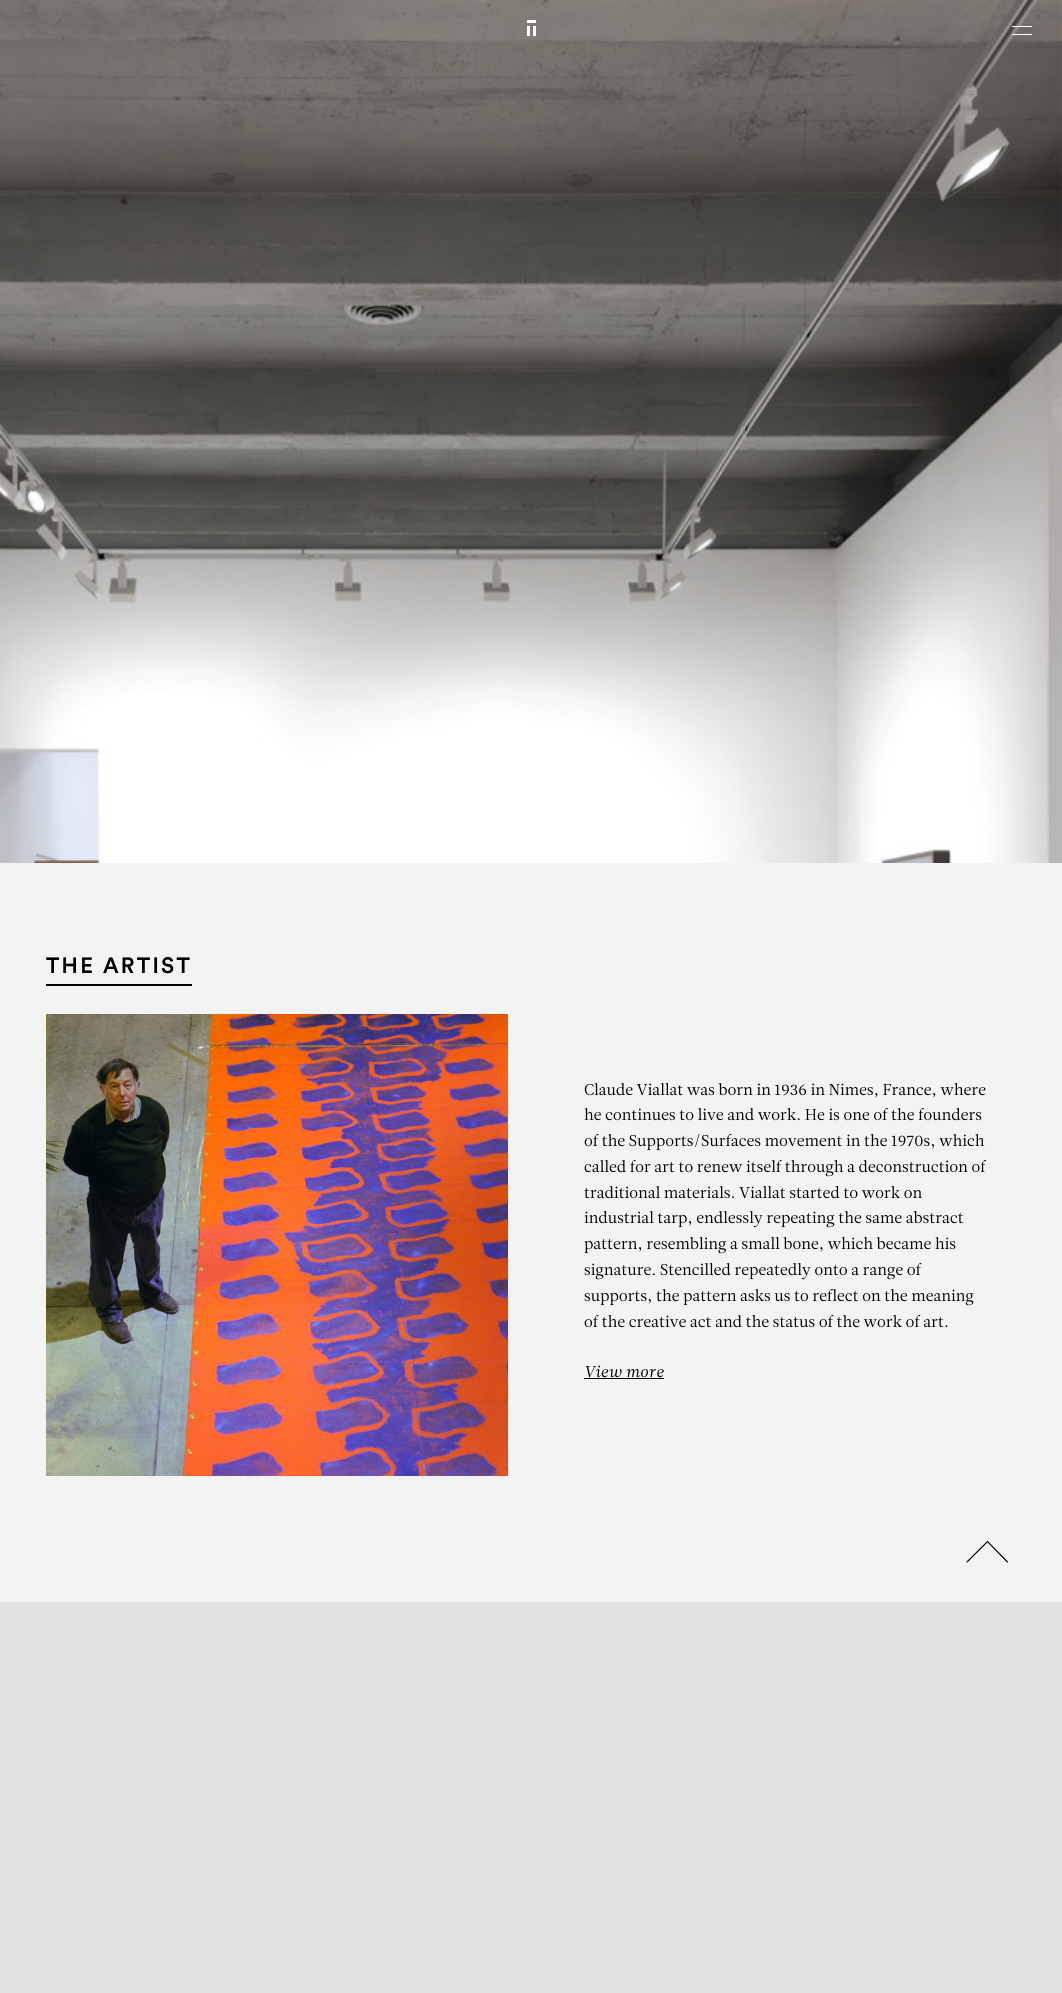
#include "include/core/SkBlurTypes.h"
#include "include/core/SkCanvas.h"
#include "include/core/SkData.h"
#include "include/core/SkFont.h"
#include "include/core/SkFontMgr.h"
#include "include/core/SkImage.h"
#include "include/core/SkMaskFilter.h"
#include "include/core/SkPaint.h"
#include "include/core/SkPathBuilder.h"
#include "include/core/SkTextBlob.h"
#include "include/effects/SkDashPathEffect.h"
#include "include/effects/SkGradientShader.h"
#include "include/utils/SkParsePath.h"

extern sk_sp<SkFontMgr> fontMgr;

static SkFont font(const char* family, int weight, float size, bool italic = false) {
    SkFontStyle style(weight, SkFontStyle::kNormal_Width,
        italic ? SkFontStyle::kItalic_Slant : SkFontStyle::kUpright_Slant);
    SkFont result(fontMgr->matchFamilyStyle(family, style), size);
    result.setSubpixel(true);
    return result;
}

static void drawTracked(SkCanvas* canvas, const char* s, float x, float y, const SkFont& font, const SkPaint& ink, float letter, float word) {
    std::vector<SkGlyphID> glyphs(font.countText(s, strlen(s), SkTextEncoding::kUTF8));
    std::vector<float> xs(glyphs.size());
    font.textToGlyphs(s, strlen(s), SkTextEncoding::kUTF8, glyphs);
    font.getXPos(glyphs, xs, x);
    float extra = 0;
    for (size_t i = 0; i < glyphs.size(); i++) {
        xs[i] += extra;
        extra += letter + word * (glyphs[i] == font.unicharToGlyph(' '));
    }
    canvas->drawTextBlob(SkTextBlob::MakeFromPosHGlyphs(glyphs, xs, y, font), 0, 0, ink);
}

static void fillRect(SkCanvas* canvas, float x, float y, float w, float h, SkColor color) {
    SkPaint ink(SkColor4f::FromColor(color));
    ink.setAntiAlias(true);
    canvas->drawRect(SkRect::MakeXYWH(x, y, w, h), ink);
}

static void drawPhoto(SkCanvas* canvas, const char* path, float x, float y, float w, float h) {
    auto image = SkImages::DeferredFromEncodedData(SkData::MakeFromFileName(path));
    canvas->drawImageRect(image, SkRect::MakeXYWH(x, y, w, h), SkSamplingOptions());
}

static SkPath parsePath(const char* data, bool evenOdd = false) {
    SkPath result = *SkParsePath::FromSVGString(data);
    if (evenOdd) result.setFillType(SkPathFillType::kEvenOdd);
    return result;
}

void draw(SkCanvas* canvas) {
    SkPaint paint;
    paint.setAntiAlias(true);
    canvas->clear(0xFFFFFFFF);
    drawPhoto(canvas, "assets/img1.png", 0, 0, 1062, 863);
    fillRect(canvas, 527, 26, 3, 10, 0xFFFFFFFF);
    fillRect(canvas, 533, 26, 3, 10, 0xFFFFFFFF);
    fillRect(canvas, 527, 20, 9, 3, 0xFFFFFFFF);
    fillRect(canvas, 1012, 26, 20, 1, 0xFFFFFFFF);
    fillRect(canvas, 1012, 34, 20, 1, 0xFFFFFFFF);
    fillRect(canvas, 0, 863, 1062, 739, 0xFFF3F3F3);
    fillRect(canvas, 46, 984, 146, 2, 0xFF000000);
    SkFont font1 = font("Circular", 500, 22);
    paint.setColor(0xFF000000);
    drawTracked(canvas, "THE ARTIST", 46, 973, font1, paint, 2.25f, 0);
    drawPhoto(canvas, "assets/img2.png", 46, 1014, 462, 462);
    drawPhoto(canvas, "assets/img3.png", 584, 1083, 402, 15);
    drawPhoto(canvas, "assets/img4.png", 584, 1108, 398, 13);
    drawPhoto(canvas, "assets/img5.png", 584, 1133, 401, 18);
    drawPhoto(canvas, "assets/img6.png", 584, 1160, 402, 17);
    drawPhoto(canvas, "assets/img7.png", 584, 1186, 338, 13);
    drawPhoto(canvas, "assets/img8.png", 584, 1211, 380, 17);
    drawPhoto(canvas, "assets/img9.png", 584, 1237, 372, 17);
    drawPhoto(canvas, "assets/img10.png", 584, 1263, 338, 17);
    drawPhoto(canvas, "assets/img11.png", 584, 1289, 390, 17);
    drawPhoto(canvas, "assets/img12.png", 584, 1315, 364, 13);
    drawPhoto(canvas, "assets/img13.png", 585, 1365, 79, 13);
    fillRect(canvas, 584, 1378, 80, 1, 0xFF000000);
    paint.setStroke(true);
    paint.setStrokeWidth(1.1f);
    paint.setStrokeCap(SkPaint::kRound_Cap);
    canvas->drawPath(parsePath("M1007.5 1562L987.5 1541.5L967 1562"), paint);
    fillRect(canvas, 0, 1602, 1062, 391, 0xFFE1E1E1);
}
